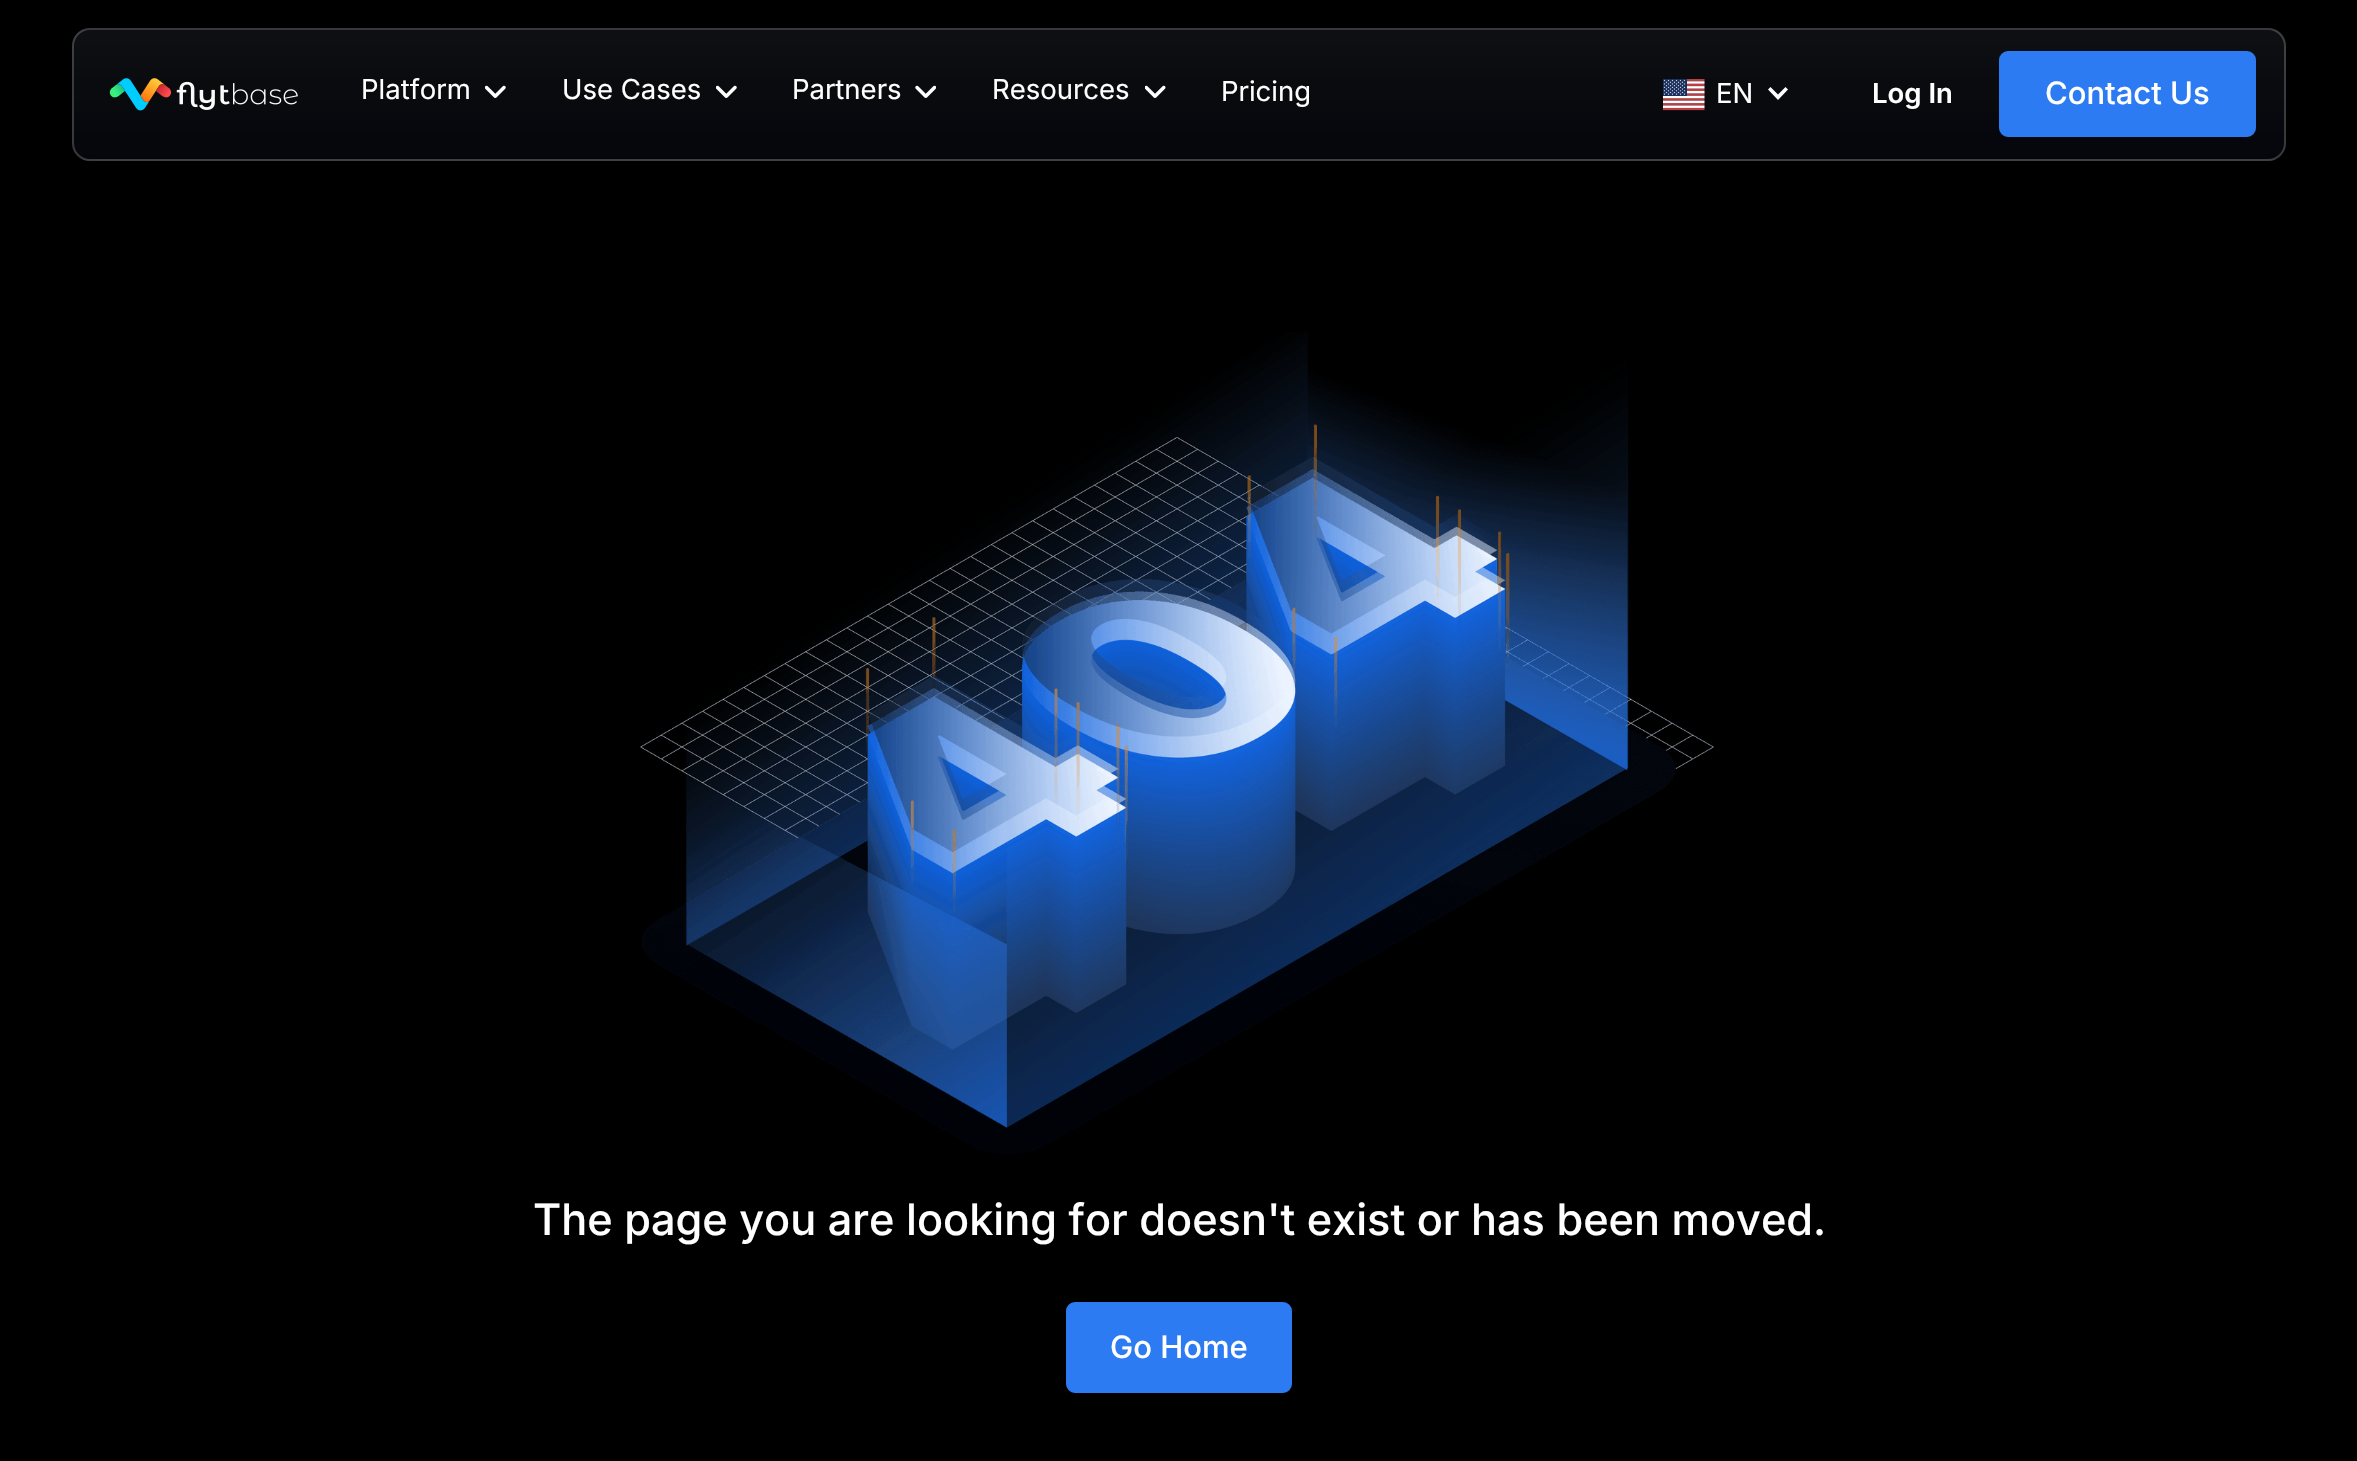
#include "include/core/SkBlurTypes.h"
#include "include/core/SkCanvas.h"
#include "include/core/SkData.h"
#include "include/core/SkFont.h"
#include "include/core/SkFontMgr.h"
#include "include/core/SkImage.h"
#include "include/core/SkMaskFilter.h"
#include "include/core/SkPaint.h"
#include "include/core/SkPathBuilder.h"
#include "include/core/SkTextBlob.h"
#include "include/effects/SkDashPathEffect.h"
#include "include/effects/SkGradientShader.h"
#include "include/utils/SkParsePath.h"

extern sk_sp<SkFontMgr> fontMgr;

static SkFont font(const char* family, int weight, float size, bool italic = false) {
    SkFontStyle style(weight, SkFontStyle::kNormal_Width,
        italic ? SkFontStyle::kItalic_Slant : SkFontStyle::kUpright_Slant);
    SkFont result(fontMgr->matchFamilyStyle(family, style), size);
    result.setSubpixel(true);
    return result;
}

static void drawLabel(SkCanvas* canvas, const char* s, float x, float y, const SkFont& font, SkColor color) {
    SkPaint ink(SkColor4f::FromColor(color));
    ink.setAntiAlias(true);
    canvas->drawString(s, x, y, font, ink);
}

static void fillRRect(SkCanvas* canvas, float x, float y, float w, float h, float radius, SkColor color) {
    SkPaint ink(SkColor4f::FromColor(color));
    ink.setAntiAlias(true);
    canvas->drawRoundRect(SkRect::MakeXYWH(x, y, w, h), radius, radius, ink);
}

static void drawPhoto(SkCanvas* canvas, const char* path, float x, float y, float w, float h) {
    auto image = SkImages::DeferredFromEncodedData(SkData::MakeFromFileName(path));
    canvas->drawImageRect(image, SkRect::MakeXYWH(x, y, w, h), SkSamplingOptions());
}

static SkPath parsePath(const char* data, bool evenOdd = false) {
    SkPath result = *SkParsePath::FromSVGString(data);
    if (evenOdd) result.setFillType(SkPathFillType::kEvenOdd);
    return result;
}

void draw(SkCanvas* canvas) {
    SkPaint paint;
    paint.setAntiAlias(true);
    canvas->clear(0xFF000000);
    canvas->save();
    canvas->clipPath(parsePath("M90 28H2268C2278 28 2286 36 2286 46V143C2286 153 2278 161 2268 161H90C80 161 72 153 72 143V46C72 36 80 28 90 28Z"), true);
    {
        const SkColor colors[] = {0xFF0E0F0F, 0xFF020306};
        const float stops[] = {0, 1};
        const SkPoint ends[] = {{1179, -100}, {1179, 30}};
        paint.setShader(SkGradientShader::MakeLinear(ends, colors, stops, 2, SkTileMode::kClamp));
        paint.setAlpha(255);
    }
    canvas->drawRect(SkRect::MakeXYWH(82, 28, 2194, 2), paint);
    {
        const SkColor colors[] = {0xFF0E0F0F, 0xFF020306};
        const float stops[] = {0, 1};
        const SkPoint ends[] = {{1179, 30}, {1179, 159}};
        paint.setShader(SkGradientShader::MakeLinear(ends, colors, stops, 2, SkTileMode::kClamp));
        paint.setAlpha(255);
    }
    canvas->drawRect(SkRect::MakeXYWH(72, 30, 2214, 129), paint);
    {
        const SkColor colors[] = {0xFF0E0F0F, 0xFF020306};
        const float stops[] = {0, 1};
        const SkPoint ends[] = {{1179, 159}, {1179, 289}};
        paint.setShader(SkGradientShader::MakeLinear(ends, colors, stops, 2, SkTileMode::kClamp));
        paint.setAlpha(255);
    }
    canvas->drawRect(SkRect::MakeXYWH(82, 159, 2194, 2), paint);
    canvas->restore();
    fillRRect(canvas, 72, 28, 2214, 133, 18, 0x330A111D);
    paint.setStroke(true);
    paint.setStrokeWidth(2);
    paint.setShader(nullptr);
    paint.setColor(0x33FFFFFF);
    canvas->drawRoundRect(SkRect::MakeXYWH(73, 29, 2212, 131), 17, 17, paint);
    drawPhoto(canvas, "assets/img1.png", 109, 78, 189, 33);
    SkFont font1 = font("Inter", 400, 27.5f);
    drawLabel(canvas, "Platform", 361, 99, font1, 0xFFFFFFFF);
    drawPhoto(canvas, "assets/img2.png", 485, 85, 21, 13);
    drawLabel(canvas, "Use Cases", 562, 99, font1, 0xFFFFFFFF);
    drawPhoto(canvas, "assets/img2.png", 716, 85, 21, 13);
    drawLabel(canvas, "Partners", 792, 99, font1, 0xFFFFFFFF);
    drawPhoto(canvas, "assets/img3.png", 915, 85, 21, 13);
    drawLabel(canvas, "Resources", 992, 99, font1, 0xFFFFFFFF);
    drawPhoto(canvas, "assets/img4.png", 1145, 85, 21, 13);
    drawLabel(canvas, "Pricing", 1221, 101, font1, 0xFFFFFFFF);
    drawPhoto(canvas, "assets/img5.png", 1663, 79, 42, 32);
    drawLabel(canvas, "EN", 1716, 103, font1, 0xFFFFFFFF);
    paint.setStroke(false);
    paint.setColor(0xFFFFFFFF);
    canvas->drawPath(parsePath("M1785.5 87L1778 94.5L1770.5 87L1768 89.5L1778 100L1788 89.5Z"), paint);
    SkFont font2 = font("Inter", 600, 27.5f);
    drawLabel(canvas, "Log In", 1872, 103, font2, 0xFFFFFFFF);
    paint.setColor(0xFF2C7BF2);
    canvas->drawRoundRect(SkRect::MakeXYWH(2000, 52, 255, 84), 8, 8, paint);
    paint.setStroke(true);
    canvas->drawRoundRect(SkRect::MakeXYWH(2000, 52, 255, 84), 8, 8, paint);
    SkFont font3 = font("Inter", 500, 31);
    drawLabel(canvas, "Contact Us", 2045, 104, font3, 0xFFFFFFFF);
    drawPhoto(canvas, "assets/img6.png", 640, 332, 1074, 822);
    SkFont font4 = font("Inter", 500, 43.25f);
    drawLabel(canvas, "The page you are looking for doesn't exist or has been moved.", 533, 1235, font4, 0xFFFFFFFF);
    paint.setStroke(false);
    canvas->drawRoundRect(SkRect::MakeXYWH(1067, 1303, 224, 89), 8, 8, paint);
    paint.setStroke(true);
    canvas->drawRoundRect(SkRect::MakeXYWH(1067, 1303, 224, 89), 8, 8, paint);
    drawLabel(canvas, "Go Home", 1110, 1358, font3, 0xFFFFFFFF);
}
